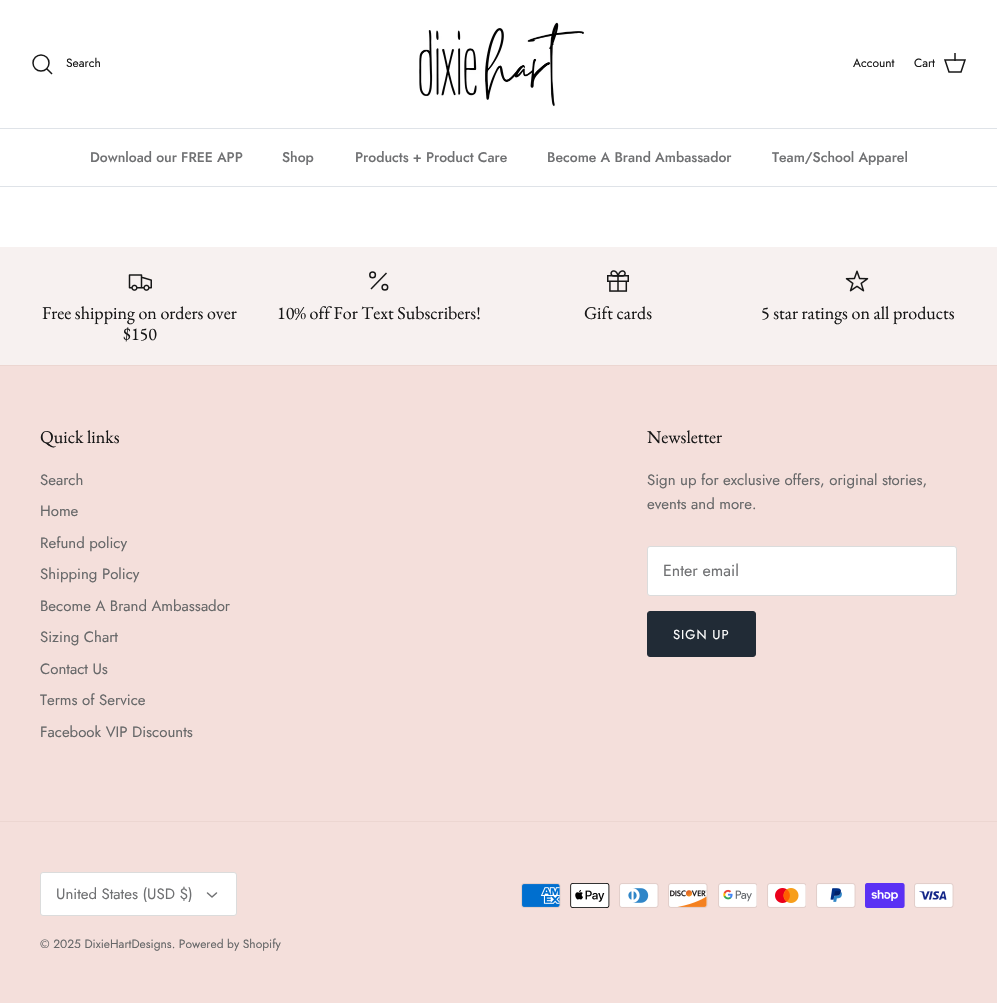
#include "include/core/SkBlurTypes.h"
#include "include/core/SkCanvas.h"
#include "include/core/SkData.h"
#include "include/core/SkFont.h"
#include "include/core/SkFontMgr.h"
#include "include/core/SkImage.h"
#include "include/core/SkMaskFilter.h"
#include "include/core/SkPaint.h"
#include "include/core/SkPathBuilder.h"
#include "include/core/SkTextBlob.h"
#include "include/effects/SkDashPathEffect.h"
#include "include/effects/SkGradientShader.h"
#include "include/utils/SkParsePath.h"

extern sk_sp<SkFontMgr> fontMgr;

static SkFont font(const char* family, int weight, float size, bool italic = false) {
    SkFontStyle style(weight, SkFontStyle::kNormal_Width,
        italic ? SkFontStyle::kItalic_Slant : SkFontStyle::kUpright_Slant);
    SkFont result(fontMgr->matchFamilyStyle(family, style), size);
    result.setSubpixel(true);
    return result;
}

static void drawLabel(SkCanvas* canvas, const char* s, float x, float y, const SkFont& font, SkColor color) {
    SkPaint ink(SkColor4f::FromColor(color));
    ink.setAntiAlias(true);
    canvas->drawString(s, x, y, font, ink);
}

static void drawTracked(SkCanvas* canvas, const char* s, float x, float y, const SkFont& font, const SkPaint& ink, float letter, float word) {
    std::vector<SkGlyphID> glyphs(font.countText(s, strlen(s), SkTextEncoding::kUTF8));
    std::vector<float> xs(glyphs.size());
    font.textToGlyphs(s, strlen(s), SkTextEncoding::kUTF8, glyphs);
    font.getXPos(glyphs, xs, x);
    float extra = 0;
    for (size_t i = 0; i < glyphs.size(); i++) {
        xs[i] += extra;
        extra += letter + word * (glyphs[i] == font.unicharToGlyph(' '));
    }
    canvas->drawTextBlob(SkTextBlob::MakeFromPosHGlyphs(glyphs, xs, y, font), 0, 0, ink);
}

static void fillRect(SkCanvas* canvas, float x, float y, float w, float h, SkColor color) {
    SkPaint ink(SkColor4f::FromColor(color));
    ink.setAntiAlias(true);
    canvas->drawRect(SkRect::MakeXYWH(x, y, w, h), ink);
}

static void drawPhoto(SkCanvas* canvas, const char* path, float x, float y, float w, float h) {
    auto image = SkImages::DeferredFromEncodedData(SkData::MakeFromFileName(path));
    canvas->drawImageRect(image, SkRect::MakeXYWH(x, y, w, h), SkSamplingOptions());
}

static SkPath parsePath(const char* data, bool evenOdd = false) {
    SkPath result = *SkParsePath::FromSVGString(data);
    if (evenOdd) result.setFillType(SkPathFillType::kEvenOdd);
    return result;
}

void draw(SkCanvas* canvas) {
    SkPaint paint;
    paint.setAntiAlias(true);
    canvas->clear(0xFFFFFFFF);
    fillRect(canvas, 0, 128, 997, 1, 0xFFDFE3E8);
    paint.setStroke(true);
    paint.setStrokeWidth(1.5f);
    paint.setColor(0xFF171717);
    canvas->drawCircle(41, 63, 8, paint);
    SkFont font1 = font("Jost", 400, 12);
    drawLabel(canvas, "Search", 66, 67, font1, 0xFF171717);
    paint.setStrokeCap(SkPaint::kSquare_Cap);
    canvas->drawPath(parsePath("M47 69L51.5 73.5"), paint);
    drawPhoto(canvas, "assets/img1.png", 419, 22, 165, 85);
    drawLabel(canvas, "Account", 853, 67, font1, 0xFF171717);
    drawLabel(canvas, "Cart", 914, 67, font1, 0xFF171717);
    paint.setStrokeCap(SkPaint::kButt_Cap);
    canvas->drawPath(parsePath("M945 60H965L961 72H949Z"), paint);
    fillRect(canvas, 954, 53, 2, 8, 0xBF171717);
    fillRect(canvas, 0, 186, 997, 1, 0xFFDFE3E8);
    SkFont font2 = font("Jost", 500, 14);
    drawLabel(canvas, "Download our FREE APP", 90, 162, font2, 0xFF707173);
    drawLabel(canvas, "Shop", 282, 162, font2, 0xFF707173);
    drawLabel(canvas, "Products + Product Care", 355, 162, font2, 0xFF707173);
    drawLabel(canvas, "Become A Brand Ambassador", 547, 162, font2, 0xFF707173);
    drawLabel(canvas, "Team/School Apparel", 772, 162, font2, 0xFF707173);
    fillRect(canvas, 0, 366, 997, 637, 0xFFF4DFDB);
    fillRect(canvas, 0, 247, 997, 118, 0xFFF7F1F0);
    drawPhoto(canvas, "assets/img2.png", 128, 274, 24, 17);
    SkFont font3 = font("EB Garamond", 400, 18);
    drawLabel(canvas, "Free shipping on orders over", 42, 319, font3, 0xFF171717);
    drawLabel(canvas, "$150", 123, 340, font3, 0xFF171717);
    canvas->drawPath(parsePath("M386.5 273L371 289"), paint);
    canvas->drawCircle(372.6f, 274.9f, 2.8f, paint);
    canvas->drawCircle(384.9f, 287.2f, 2.8f, paint);
    drawLabel(canvas, "10% off For Text Subscribers!", 277, 319, font3, 0xFF171717);
    drawPhoto(canvas, "assets/img3.png", 607, 270, 22, 22);
    drawLabel(canvas, "Gift cards", 584, 319, font3, 0xFF171717);
    drawPhoto(canvas, "assets/img4.png", 845, 270, 24, 22);
    drawLabel(canvas, "5 star ratings on all products", 761, 319, font3, 0xFF171717);
    fillRect(canvas, 0, 365, 997, 1, 0xFFECD6D1);
    drawLabel(canvas, "Quick links", 40, 443, font3, 0xFF171717);
    SkFont font4 = font("Jost", 400, 15);
    drawLabel(canvas, "Search", 40, 485, font4, 0xFF676869);
    drawLabel(canvas, "Home", 40, 516, font4, 0xFF676869);
    drawLabel(canvas, "Refund policy", 40, 548, font4, 0xFF676869);
    drawLabel(canvas, "Shipping Policy", 40, 579, font4, 0xFF676869);
    drawLabel(canvas, "Become A Brand Ambassador", 40, 611, font4, 0xFF676869);
    drawLabel(canvas, "Sizing Chart", 40, 642, font4, 0xFF676869);
    drawLabel(canvas, "Contact Us", 40, 674, font4, 0xFF676869);
    drawLabel(canvas, "Terms of Service", 40, 705, font4, 0xFF676869);
    drawLabel(canvas, "Facebook VIP Discounts", 40, 737, font4, 0xFF676869);
    drawLabel(canvas, "Newsletter", 647, 443, font3, 0xFF171717);
    drawLabel(canvas, "Sign up for exclusive offers, original stories,", 647, 485, font4, 0xFF676869);
    drawLabel(canvas, "events and more.", 647, 509, font4, 0xFF676869);
    paint.setStroke(false);
    paint.setColor(0xFFFFFFFF);
    canvas->drawRoundRect(SkRect::MakeXYWH(647.5f, 546.5f, 309, 49), 2.5f, 2.5f, paint);
    paint.setStroke(true);
    paint.setStrokeWidth(1);
    paint.setColor(0xFFDBDCDC);
    canvas->drawRoundRect(SkRect::MakeXYWH(647.5f, 546.5f, 309, 49), 2.5f, 2.5f, paint);
    SkFont font5 = font("Jost", 400, 16);
    drawLabel(canvas, "Enter email", 663, 576, font5, 0xFF707173);
    paint.setStroke(false);
    paint.setColor(0xFF212B36);
    canvas->drawRoundRect(SkRect::MakeXYWH(647.5f, 611.5f, 108, 45), 2.5f, 2.5f, paint);
    paint.setStroke(true);
    canvas->drawRoundRect(SkRect::MakeXYWH(647.5f, 611.5f, 108, 45), 2.5f, 2.5f, paint);
    SkFont font6 = font("Jost", 400, 13);
    paint.setStroke(false);
    paint.setColor(0xFFFFFFFF);
    drawTracked(canvas, "SIGN UP", 673, 639, font6, paint, 1, 0);
    fillRect(canvas, 0, 821, 997, 1, 0xFFECD6D1);
    canvas->drawRoundRect(SkRect::MakeXYWH(40.5f, 872.5f, 196, 43), 2.5f, 2.5f, paint);
    paint.setStroke(true);
    paint.setColor(0xFFDBDCDC);
    canvas->drawRoundRect(SkRect::MakeXYWH(40.5f, 872.5f, 196, 43), 2.5f, 2.5f, paint);
    drawLabel(canvas, "United States (USD $)", 56, 899, font4, 0xFF707173);
    paint.setStrokeWidth(1.5f);
    paint.setStrokeCap(SkPaint::kRound_Cap);
    paint.setStrokeJoin(SkPaint::kRound_Join);
    paint.setColor(0xFF707173);
    canvas->drawPath(parsePath("M207.5 893L212 897L216.5 893"), paint);
    drawLabel(canvas, "© 2025 DixieHartDesigns. Powered by Shopify", 40, 948, font1, 0xFF676869);
    drawPhoto(canvas, "assets/img5.png", 521, 883, 40, 25);
    drawPhoto(canvas, "assets/img6.png", 570, 883, 40, 25);
    drawPhoto(canvas, "assets/img7.png", 619, 883, 40, 25);
    drawPhoto(canvas, "assets/img8.png", 668, 883, 40, 25);
    drawPhoto(canvas, "assets/img9.png", 718, 883, 39, 25);
    drawPhoto(canvas, "assets/img10.png", 767, 883, 39, 25);
    drawPhoto(canvas, "assets/img11.png", 816, 883, 40, 25);
    drawPhoto(canvas, "assets/img12.png", 865, 883, 40, 25);
    drawPhoto(canvas, "assets/img13.png", 914, 883, 40, 25);
}
